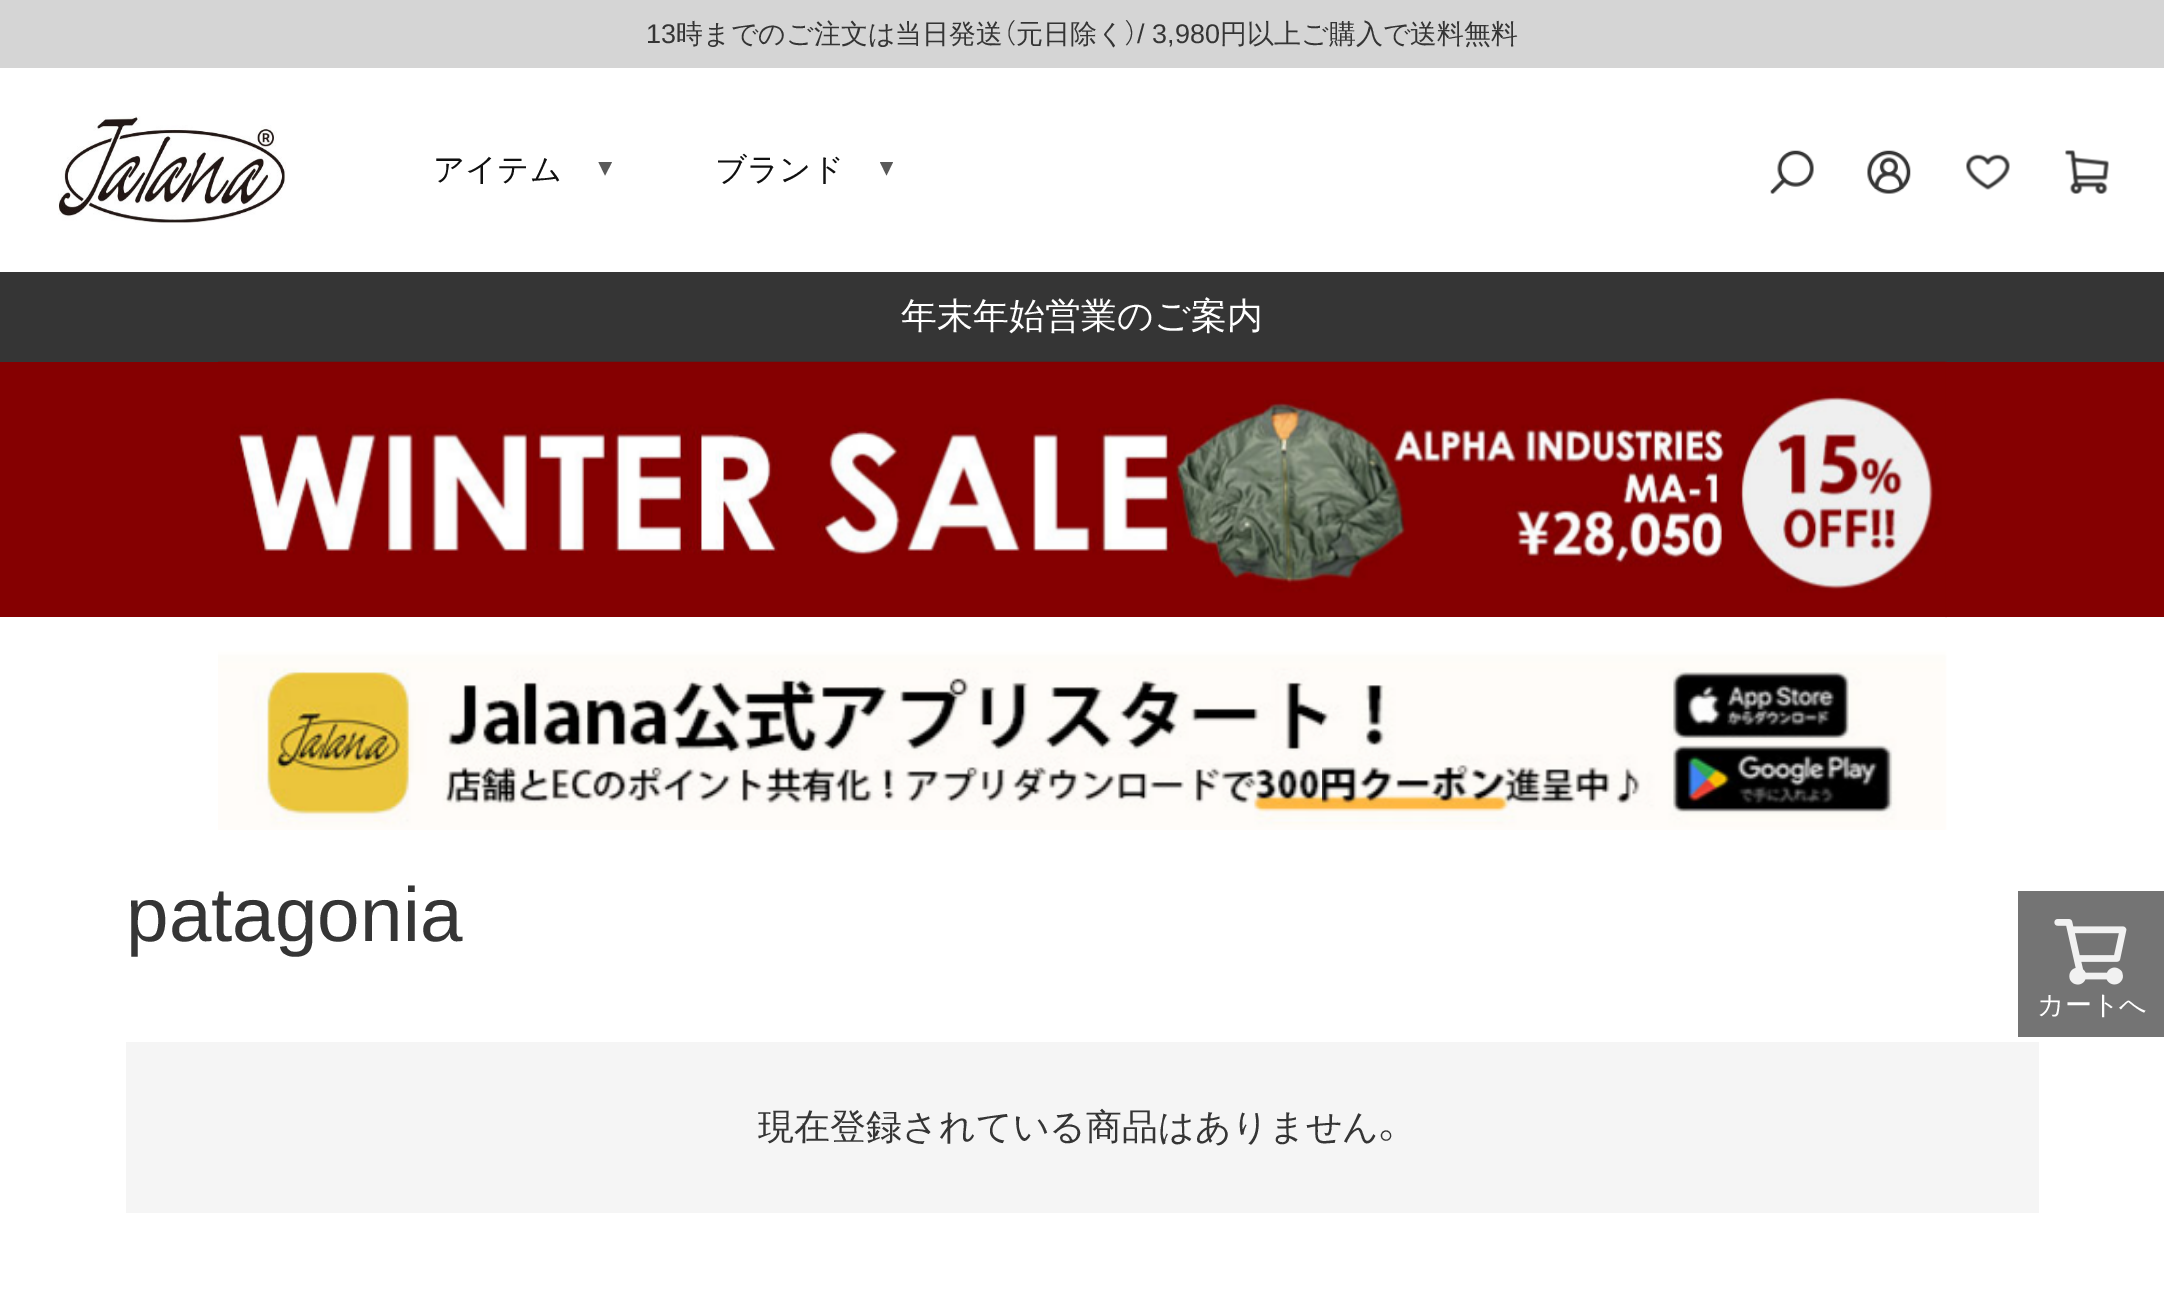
%!PS-Adobe-3.0
%%BoundingBox: 0 0 2164 1296
%%LanguageLevel: 3
%%Pages: 1
%%EndComments
%%BeginProlog
/setink { dup -16 bitshift 255 div exch dup -8 bitshift 255 and 255 div exch 255 and 255 div setrgbcolor } def
/usefont { [ exch dup neg 0 0 3 -1 roll 0 0 ] selectfont } def
/drawimage { 5 dict begin { /h /w /y /x /name } { exch def } forall
  gsave x y translate w h scale
  w h 8 [w 0 0 h 0 0] name (r) file false 3 colorimage grestore end } def
%%EndProlog
%%BeginSetup
<< /PageSize [2164 1296] >> setpagedevice
%%EndSetup
%%Page: 1 1
0 1296 translate 1 -1 scale
4 setmiterlimit
16#FFFFFF setink
0 0 2164 1296 rectfill
16#D5D5D5 setink
0 0 2164 68 rectfill
/LiberationSans-Regular 27 usefont
16#353535 setink
646 43 moveto (13) show
/WenQuanYiZenHei-Medium 27 usefont
676 43 moveto (時までのご注文は当日発送) show
/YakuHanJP-Light 27 usefont
1003 43 moveto (（) show
/WenQuanYiZenHei-Medium 27 usefont
1016 43 moveto (元日除く) show
/YakuHanJP-Light 27 usefont
1125 43 moveto (）) show
/LiberationSans-Regular 27 usefont
1137 43 moveto (/ 3,980) show
/WenQuanYiZenHei-Medium 27 usefont
1220 43 moveto (円以上ご購入で送料無料) show
(img1.raw) 58 116 228 107 drawimage
/WenQuanYiZenHei-Medium 31.5 usefont
16#101010 setink
433 180 moveto (アイテム) show
16#595959 setink
598.5 162 moveto 612 162 lineto 605 175.5 lineto closepath fill
16#101010 setink
715 180 moveto (ブランド) show
16#595959 setink
880 162 moveto 893 162 lineto 886.5 175.5 lineto closepath fill
(img2.raw) 1770 150 44 44 drawimage
(img3.raw) 1867 150 44 44 drawimage
(img4.raw) 1966 154 44 36 drawimage
(img5.raw) 2065 150 44 44 drawimage
16#353535 setink
0 272 2164 90 rectfill
/WenQuanYiZenHei-Medium 36 usefont
16#FFFFFF setink
901 328 moveto (年末年始営業のご案内) show
16#850001 setink
0 362 2164 255 rectfill
(img6.raw) 218 361 1729 257 drawimage
(img7.raw) 218 617 1729 213 drawimage
/LiberationSans-Regular 76.5 usefont
16#353535 setink
126 941 moveto (patagonia) show
16#F5F5F5 setink
126 1042 1913 171 rectfill
/WenQuanYiZenHei-Medium 36 usefont
16#353535 setink
758 1139 moveto (現在登録されている商品はありません) show
/YakuHanJP-Light 36 usefont
1379 1139 moveto (。) show
16#747474 setink
2018 891 146 146 rectfill
(img8.raw) 2054 919 73 66 drawimage
/WenQuanYiZenHei-Medium 27 usefont
16#FFFFFF setink
2037 1014 moveto (カートへ) show
showpage
%%EOF
